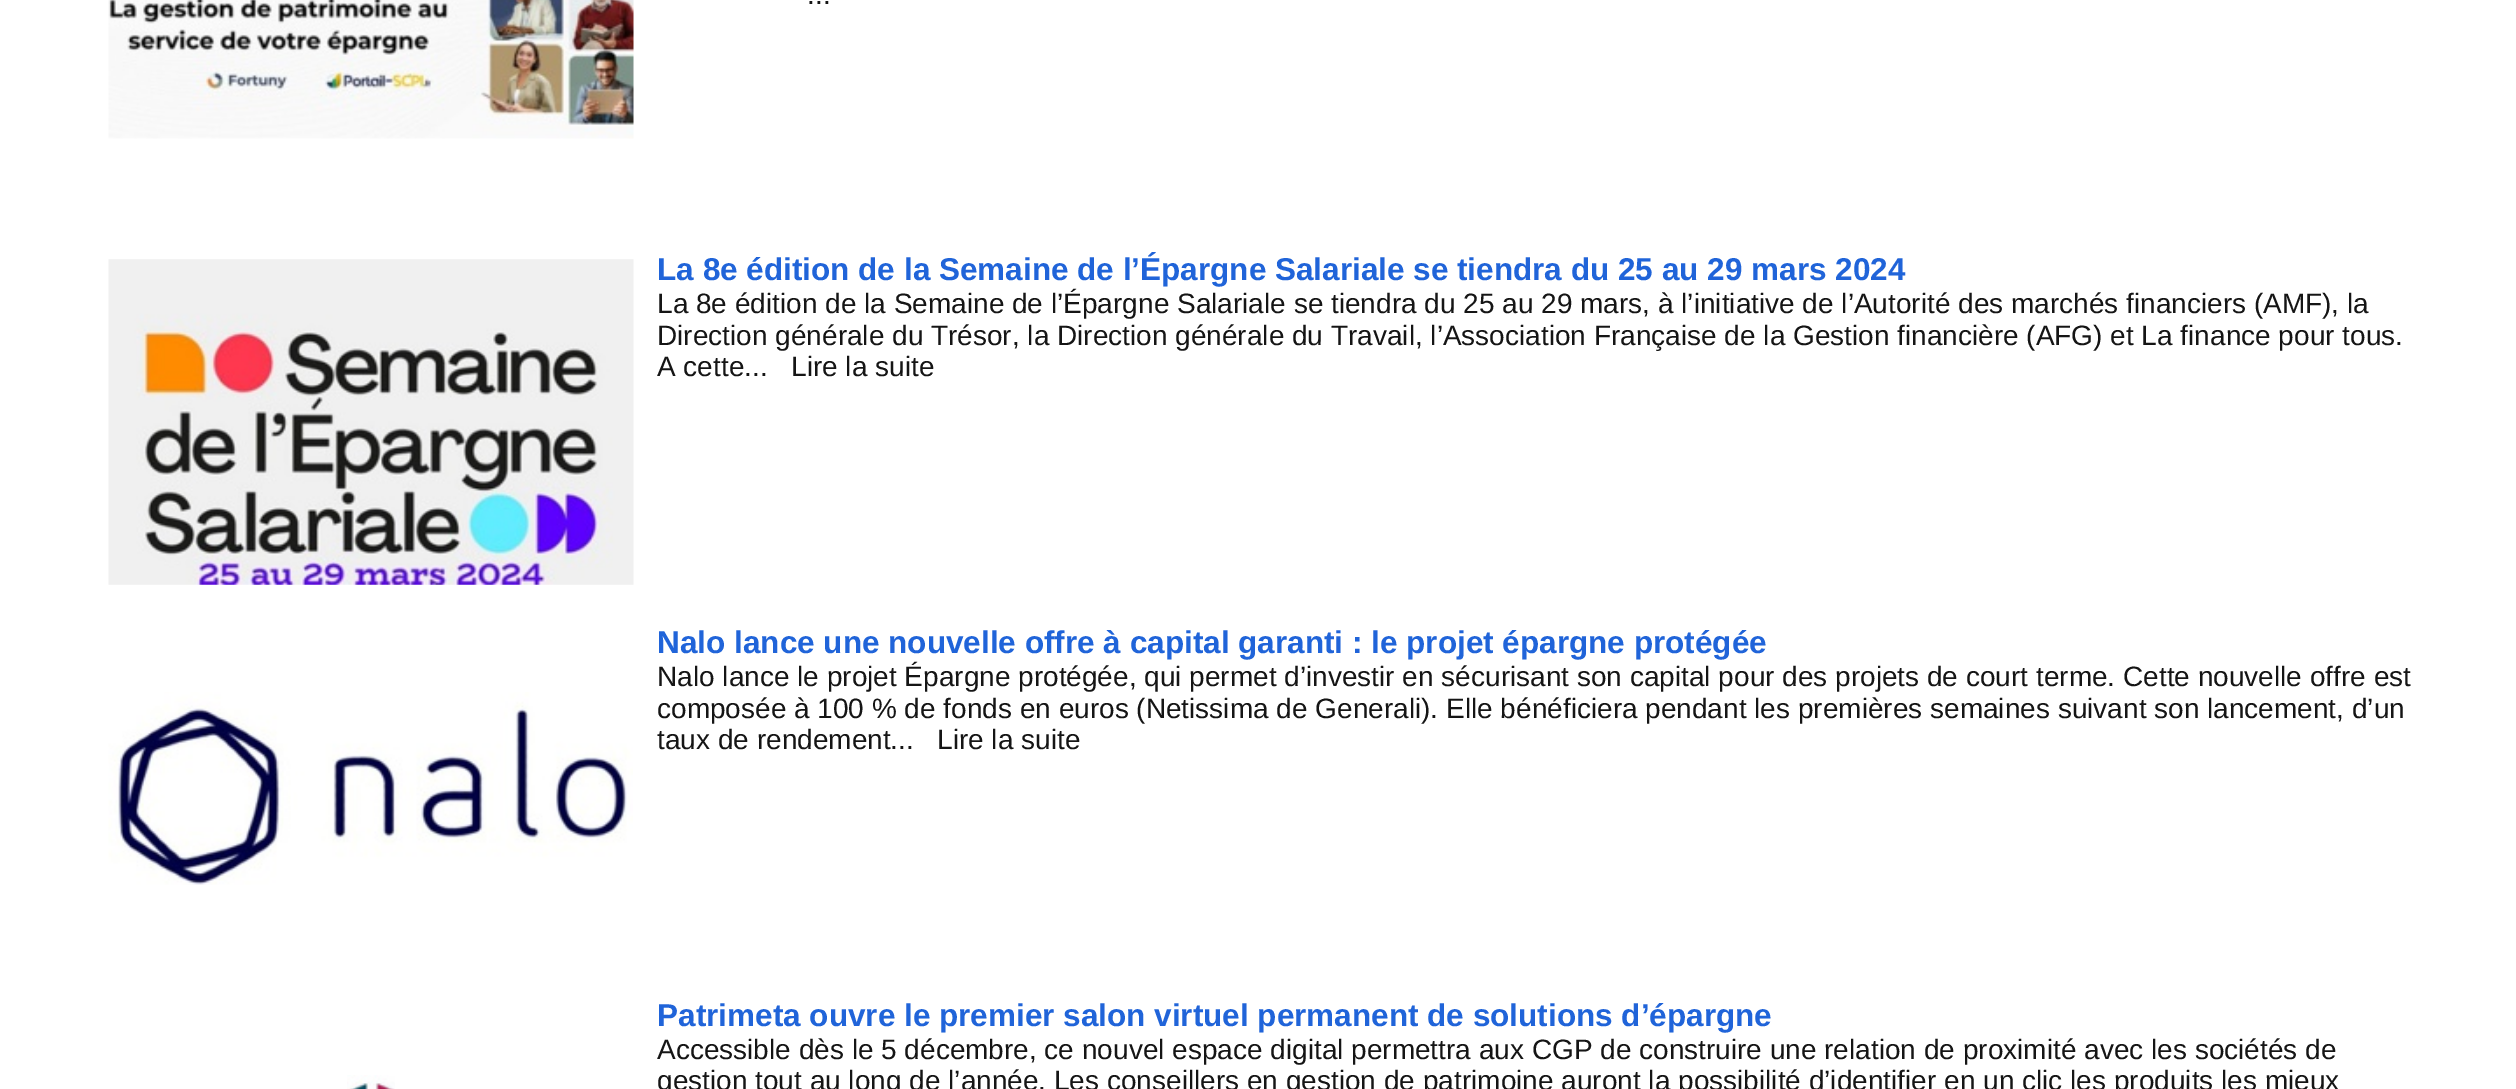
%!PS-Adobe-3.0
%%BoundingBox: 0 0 2516 1089
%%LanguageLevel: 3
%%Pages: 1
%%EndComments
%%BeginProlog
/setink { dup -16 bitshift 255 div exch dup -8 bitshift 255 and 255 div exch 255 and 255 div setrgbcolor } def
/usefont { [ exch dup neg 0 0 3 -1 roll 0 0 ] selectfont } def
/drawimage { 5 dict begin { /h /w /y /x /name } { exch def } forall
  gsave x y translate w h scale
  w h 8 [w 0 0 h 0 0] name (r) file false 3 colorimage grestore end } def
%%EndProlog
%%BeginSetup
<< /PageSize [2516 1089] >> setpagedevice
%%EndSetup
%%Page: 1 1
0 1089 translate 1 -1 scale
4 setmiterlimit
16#FFFFFF setink
0 0 2516 1089 rectfill
(img1.raw) 108 0 526 139 drawimage
/LiberationSans-Regular 28 usefont
16#151515 setink
807 4 moveto (...) show
(img2.raw) 108 259 526 326 drawimage
/LiberationSans-Bold 31.5 usefont
16#2064D9 setink
657 280 moveto (La 8e édition de la Semaine de l’Épargne Salariale se tiendra du 25 au 29 mars 2024) show
/LiberationSans-Regular 28 usefont
16#151515 setink
[
    [(La 8e édition de la Semaine de l’Épargne Salariale se tiendra du 25 au 29 mars, à l’initiative de l’Autorité des marchés financiers \(AMF\), la) 657 313]
    [(Direction générale du Trésor, la Direction générale du Travail, l’Association Française de la Gestion financière \(AFG\) et La finance pour tous.) 657 345]
    [(A cette...) 657 376]
    [(Lire la suite) 791 376]
] { aload pop moveto show } forall
(img3.raw) 108 692 525 193 drawimage
/LiberationSans-Bold 31.5 usefont
16#2064D9 setink
657 653 moveto (Nalo lance une nouvelle offre à capital garanti : le projet épargne protégée) show
/LiberationSans-Regular 28 usefont
16#151515 setink
[
    [(Nalo lance le projet Épargne protégée, qui permet d’investir en sécurisant son capital pour des projets de court terme. Cette nouvelle offre est) 657 686]
    [(composée à 100 % de fonds en euros \(Netissima de Generali\). Elle bénéficiera pendant les premières semaines suivant son lancement, d’un) 657 718]
    [(taux de rendement...) 657 749]
    [(Lire la suite) 937 749]
] { aload pop moveto show } forall
(img4.raw) 347 1075 48 14 drawimage
/LiberationSans-Bold 31.5 usefont
16#2064D9 setink
657 1026 moveto (Patrimeta ouvre le premier salon virtuel permanent de solutions d’épargne) show
/LiberationSans-Regular 28 usefont
16#151515 setink
657 1059 moveto (Accessible dès le 5 décembre, ce nouvel espace digital permettra aux CGP de construire une relation de proximité avec les sociétés de) show
657 1090 moveto (gestion tout au long de l’année. Les conseillers en gestion de patrimoine auront la possibilité d’identifier en un clic les produits les mieux) show
showpage
%%EOF
